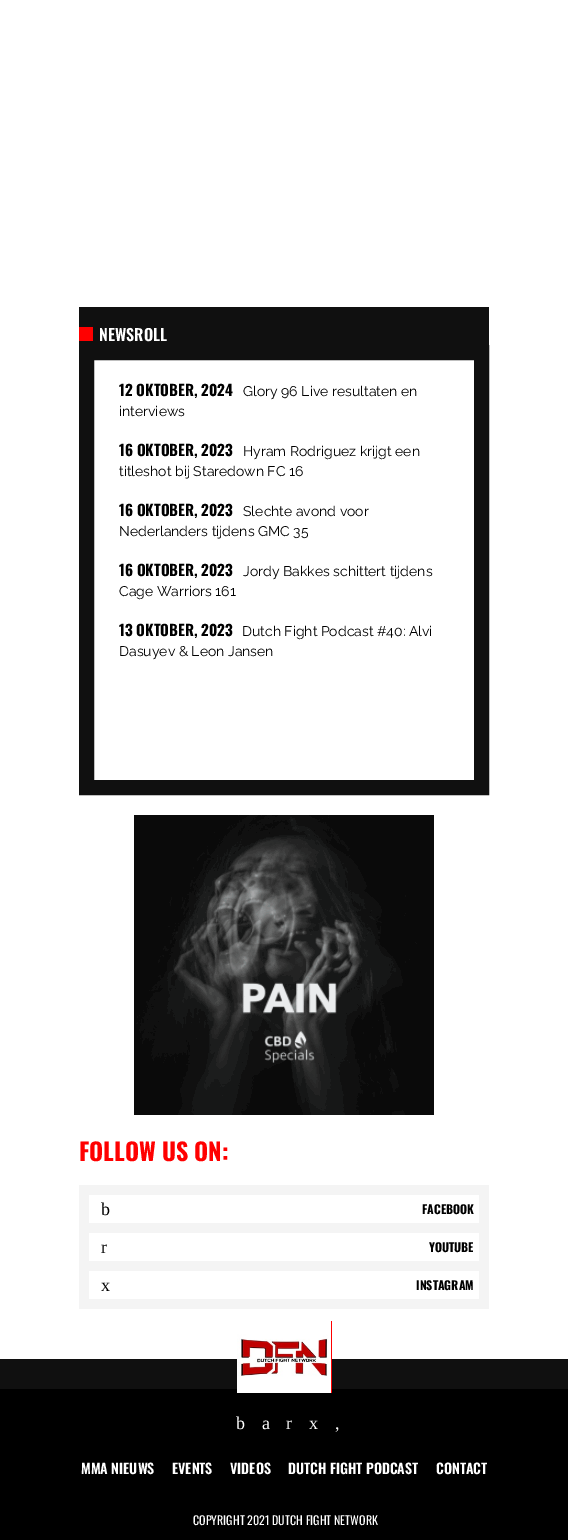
%!PS-Adobe-3.0
%%BoundingBox: 0 0 568 1540
%%LanguageLevel: 3
%%Pages: 1
%%EndComments
%%BeginProlog
/setink { dup -16 bitshift 255 div exch dup -8 bitshift 255 and 255 div exch 255 and 255 div setrgbcolor } def
/usefont { [ exch dup neg 0 0 3 -1 roll 0 0 ] selectfont } def
/drawimage { 5 dict begin { /h /w /y /x /name } { exch def } forall
  gsave x y translate w h scale
  w h 8 [w 0 0 h 0 0] name (r) file false 3 colorimage grestore end } def
%%EndProlog
%%BeginSetup
<< /PageSize [568 1540] >> setpagedevice
%%EndSetup
%%Page: 1 1
0 1540 translate 1 -1 scale
4 setmiterlimit
16#FFFFFF setink
0 0 568 1540 rectfill
16#101010 setink
79 307 410 38 rectfill
16#FF0000 setink
79 327 14 14 rectfill
/Oswald-SemiBold 16 usefont
16#FFFFFF setink
99 341 moveto (NEWSROLL) show
16#101010 setink
15 setlinewidth
86.5 352.5 395 435 rectstroke
/Oswald-Bold 15 usefont
16#000000 setink
119 396 moveto (12 OKTOBER, 2024) show
/Raleway-Thin 14 usefont
243 396 moveto (Glory 96 Live resultaten en) show
119 416 moveto (interviews) show
/Oswald-Bold 15 usefont
119 456 moveto (16 OKTOBER, 2023) show
/Raleway-Thin 14 usefont
243 456 moveto (Hyram Rodriguez krijgt een) show
119 476 moveto (titleshot bij Staredown FC 16) show
/Oswald-Bold 15 usefont
119 516 moveto (16 OKTOBER, 2023) show
/Raleway-Thin 14 usefont
243 516 moveto (Slechte avond voor) show
119 536 moveto (Nederlanders tijdens GMC 35) show
/Oswald-Bold 15 usefont
119 576 moveto (16 OKTOBER, 2023) show
/Raleway-Thin 14 usefont
243 576 moveto (Jordy Bakkes schittert tijdens) show
119 596 moveto (Cage Warriors 161) show
/Oswald-Bold 15 usefont
119 636 moveto (13 OKTOBER, 2023) show
/Raleway-Thin 14 usefont
242 636 moveto (Dutch Fight Podcast #40: Alvi) show
119 656 moveto (Dasuyev & Leon Jansen) show
(img1.raw) 134 815 300 300 drawimage
/Oswald-Bold 24 usefont
16#FF0000 setink
79 1161 moveto (FOLLOW US ON:) show
16#F4F4F4 setink
79 1185 410 124 rectfill
16#FFFFFF setink
89 1195 390 28 rectfill
/LiberationSerif-Regular 18 usefont
16#000000 setink
101 1215 moveto (b) show
/Oswald-Bold 12 usefont
422 1214 moveto (FACEBOOK) show
16#FFFFFF setink
89 1233 390 28 rectfill
/LiberationSerif-Regular 18 usefont
16#000000 setink
101 1253 moveto (r) show
/Oswald-Bold 12 usefont
429 1252 moveto (YOUTUBE) show
16#FFFFFF setink
89 1271 390 28 rectfill
/LiberationSerif-Regular 18 usefont
16#000000 setink
101 1291 moveto (x) show
/Oswald-Bold 12 usefont
416 1290 moveto (INSTAGRAM) show
[
    [0 1389 568 151 16#000000]
    [0 1359 568 30 16#101010]
    [331 1321 1 72 16#FF0000]
] { aload pop setink rectfill } forall
(img2.raw) 237 1321 94 72 drawimage
/LiberationSerif-Regular 18 usefont
16#FFFFFF setink
[
    [(b) 236 1429]
    [(a) 262 1429]
    [(r) 286 1429]
    [(x) 309 1429]
    [(,) 335 1429]
] { aload pop moveto show } forall
/Oswald-SemiBold 14 usefont
[
    [(MMA NIEUWS) 81 1474]
    [(EVENTS) 172 1474]
    [(VIDEOS) 230 1474]
    [(DUTCH FIGHT PODCAST) 288 1474]
    [(CONTACT) 436 1474]
] { aload pop moveto show } forall
/Oswald-Regular 12 usefont
193 1525 moveto (COPYRIGHT 2021 DUTCH FIGHT NETWORK) show
showpage
%%EOF
